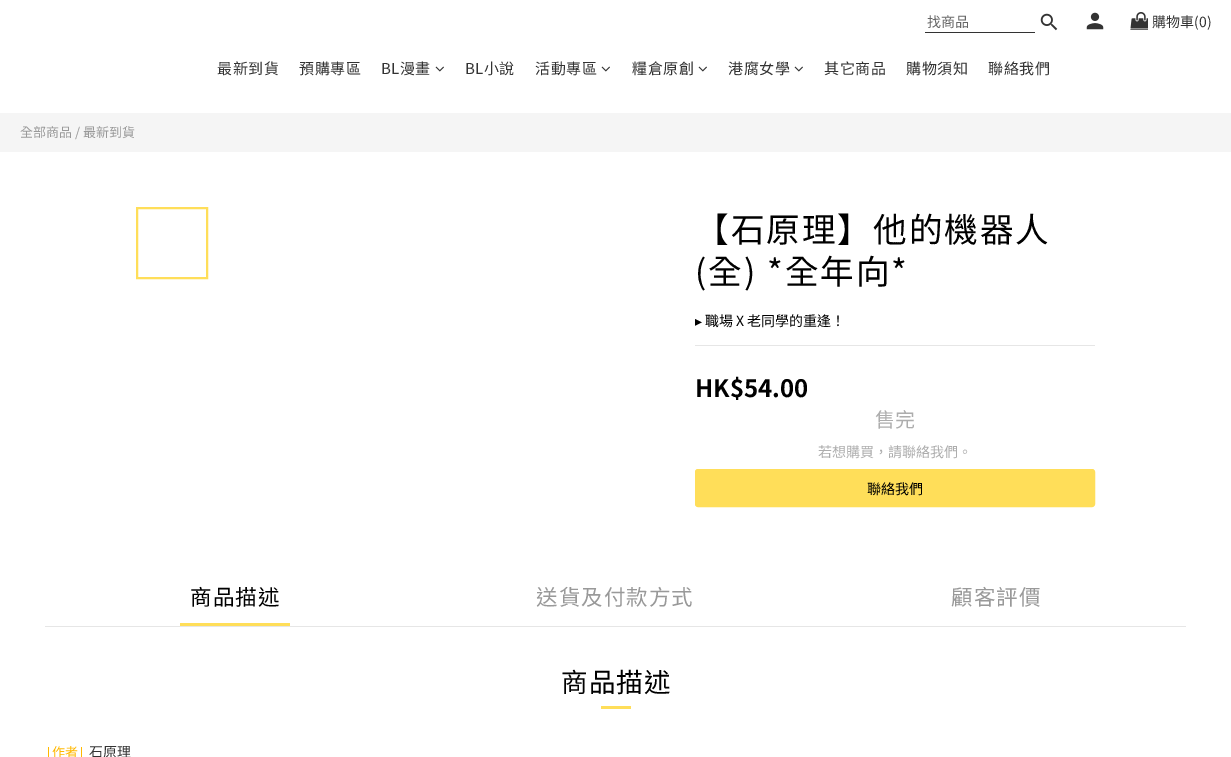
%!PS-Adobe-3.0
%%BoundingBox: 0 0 1231 757
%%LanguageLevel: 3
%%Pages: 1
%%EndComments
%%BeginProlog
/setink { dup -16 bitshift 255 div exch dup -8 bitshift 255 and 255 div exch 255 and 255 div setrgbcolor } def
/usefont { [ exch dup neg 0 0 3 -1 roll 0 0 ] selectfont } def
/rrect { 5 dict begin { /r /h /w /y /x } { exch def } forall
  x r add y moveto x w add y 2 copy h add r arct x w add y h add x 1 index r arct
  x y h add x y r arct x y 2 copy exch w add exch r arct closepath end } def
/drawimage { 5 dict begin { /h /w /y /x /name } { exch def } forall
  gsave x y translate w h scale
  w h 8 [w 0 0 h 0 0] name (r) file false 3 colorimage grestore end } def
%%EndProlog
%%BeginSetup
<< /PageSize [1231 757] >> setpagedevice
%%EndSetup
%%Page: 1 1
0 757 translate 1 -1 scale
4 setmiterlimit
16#FFFFFF setink
0 0 1231 757 rectfill
16#333333 setink
925 32 110 1 rectfill
/NotoSansTC-Regular 14 usefont
16#666666 setink
927 27 moveto (找商品) show
(img1.raw) 1040 13 18 18 drawimage
(img2.raw) 1086 12 18 18 drawimage
(img3.raw) 1130 12 18 18 drawimage
16#333333 setink
1152 27 moveto (購物車\(0\)) show
/NotoSansTC-Regular 15 usefont
217 74 moveto 0.5 0 (最新到貨) ashow
299 74 moveto 0.5 0 (預購專區) ashow
381 74 moveto 0.5 0 (BL漫畫) ashow
(img4.raw) 435 66 9 6 drawimage
465 74 moveto 0.5 0 (BL小說) ashow
535 74 moveto 0.5 0 (活動專區) ashow
(img4.raw) 601 66 9 6 drawimage
632 74 moveto 0.5 0 (糧倉原創) ashow
(img4.raw) 698 66 9 6 drawimage
728 74 moveto 0.5 0 (港腐女學) ashow
(img4.raw) 794 66 9 6 drawimage
824 74 moveto 0.5 0 (其它商品) ashow
906 74 moveto 0.5 0 (購物須知) ashow
988 74 moveto 0.5 0 (聯絡我們) ashow
16#F5F5F5 setink
0 113 1231 39 rectfill
/NotoSansTC-Regular 13 usefont
16#999999 setink
20 137 moveto (全部商品 / 最新到貨) show
16#FFDE59 setink
2 setlinewidth
137 208 70 70 rectstroke
/NotoSansTC-Regular 33.6 usefont
16#000000 setink
695 242 moveto 2 0 (【石原理】他的機器人) ashow
695 284 moveto 2 0 (\(全\) *全年向*) ashow
/DejaVuSans-Regular 14 usefont
695 326 moveto (▸) show
/NotoSansTC-Regular 14 usefont
705 326 moveto (職場 X 老同學的重逢！) show
16#E6E6E6 setink
695 345 400 1 rectfill
/NotoSansTC-Bold 24 usefont
16#000000 setink
695 397 moveto (HK$54.00) show
/NotoSansTC-Regular 20 usefont
16#ADADAD setink
875 427 moveto (售完) show
/NotoSansTC-Regular 14 usefont
818 457 moveto (若想購買，請聯絡我們。) show
16#FFDE59 setink
695.5 469.5 399 37 2.5 rrect gsave fill grestore
1 setlinewidth
stroke
16#000000 setink
867 494 moveto (聯絡我們) show
16#E6E6E6 setink
45 626 1141 1 rectfill
/NotoSansTC-Regular 21.5 usefont
16#000000 setink
190 605 moveto 1 0 (商品描述) ashow
16#FFDE59 setink
180 623 110 3 rectfill
16#999999 setink
536 605 moveto 1 0 (送貨及付款方式) ashow
951 605 moveto 1 0 (顧客評價) ashow
/NotoSansTC-Regular 26.5 usefont
16#000000 setink
561 692 moveto 1 0 (商品描述) ashow
16#FFDE59 setink
601 706 30 3 rectfill
/NotoSans-Regular 13 usefont
16#FFB800 setink
45 757 moveto (|) show
/NotoSansTC-Regular 13 usefont
52 757 moveto (作者) show
/NotoSans-Regular 13 usefont
78 757 moveto (|) show
/NotoSansTC-Regular 14 usefont
16#333333 setink
89 757 moveto (石原理) show
showpage
%%EOF
